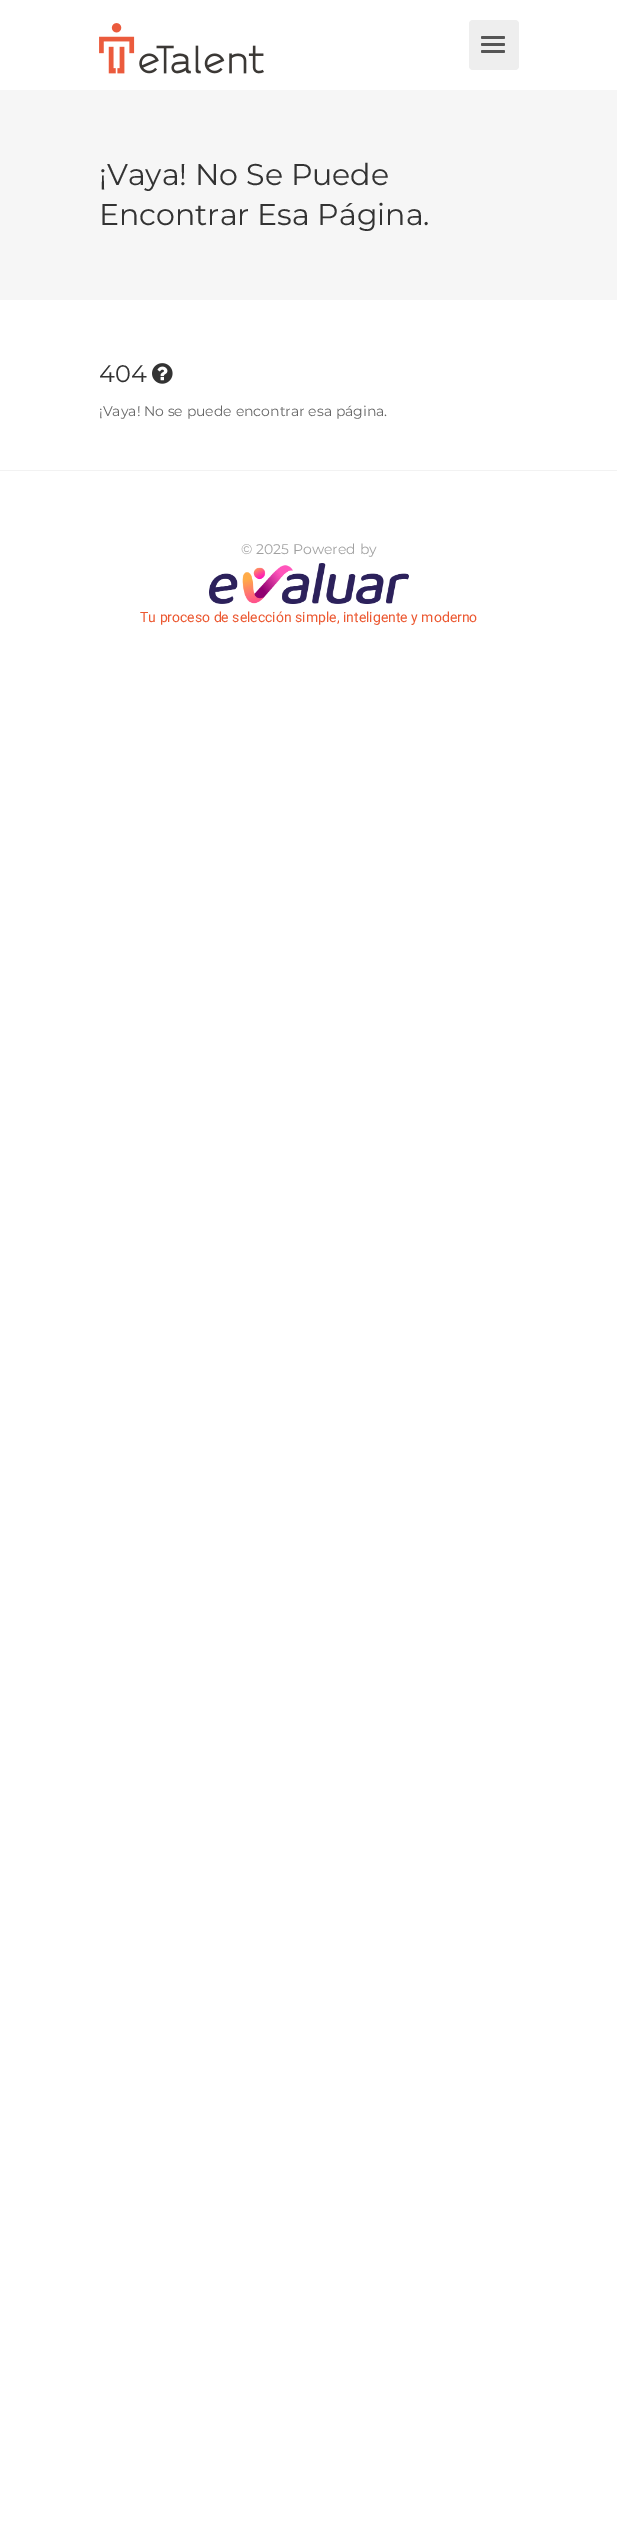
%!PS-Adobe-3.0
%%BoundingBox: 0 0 617 2532
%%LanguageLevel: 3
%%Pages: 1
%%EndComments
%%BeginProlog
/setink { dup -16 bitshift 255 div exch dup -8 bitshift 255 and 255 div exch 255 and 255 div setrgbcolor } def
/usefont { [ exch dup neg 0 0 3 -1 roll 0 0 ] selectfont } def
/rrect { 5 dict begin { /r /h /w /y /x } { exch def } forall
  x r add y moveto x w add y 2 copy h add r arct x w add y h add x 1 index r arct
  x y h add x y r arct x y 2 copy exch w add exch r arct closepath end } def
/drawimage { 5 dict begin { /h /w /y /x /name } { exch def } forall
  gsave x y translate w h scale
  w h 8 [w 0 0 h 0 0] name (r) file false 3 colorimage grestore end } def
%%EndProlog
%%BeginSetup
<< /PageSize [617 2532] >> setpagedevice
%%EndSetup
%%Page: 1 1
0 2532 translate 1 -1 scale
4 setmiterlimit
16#FFFFFF setink
0 0 617 2532 rectfill
(img1.raw) 99 23 165 51 drawimage
16#EEEEEE setink
469 20 50 50 4 rrect fill
16#555555 setink
481 50 24 3 1.5 rrect fill
481 36 24 3 1.5 rrect fill
481 43 24 3 1.5 rrect fill
16#F6F6F6 setink
0 90 617 210 rectfill
/Montserrat-Thin 30 usefont
16#333333 setink
99 185 moveto (¡Vaya! No Se Puede) show
99 225 moveto (Encontrar Esa Página.) show
/Montserrat-Thin 24 usefont
99 382 moveto (404) show
(img2.raw) 152 363 21 21 drawimage
/Montserrat-Thin 14 usefont
16#666666 setink
99 416 moveto (¡Vaya! No se puede encontrar esa página.) show
16#F2F2F2 setink
0 470 617 1 rectfill
16#A0A0A0 setink
241 554 moveto (© 2025 Powered by) show
(img3.raw) 209 563 200 41 drawimage
/Roboto-Regular 14 usefont
16#EC5831 setink
140 622 moveto (Tu proceso de selección simple, inteligente y moderno) show
showpage
%%EOF
